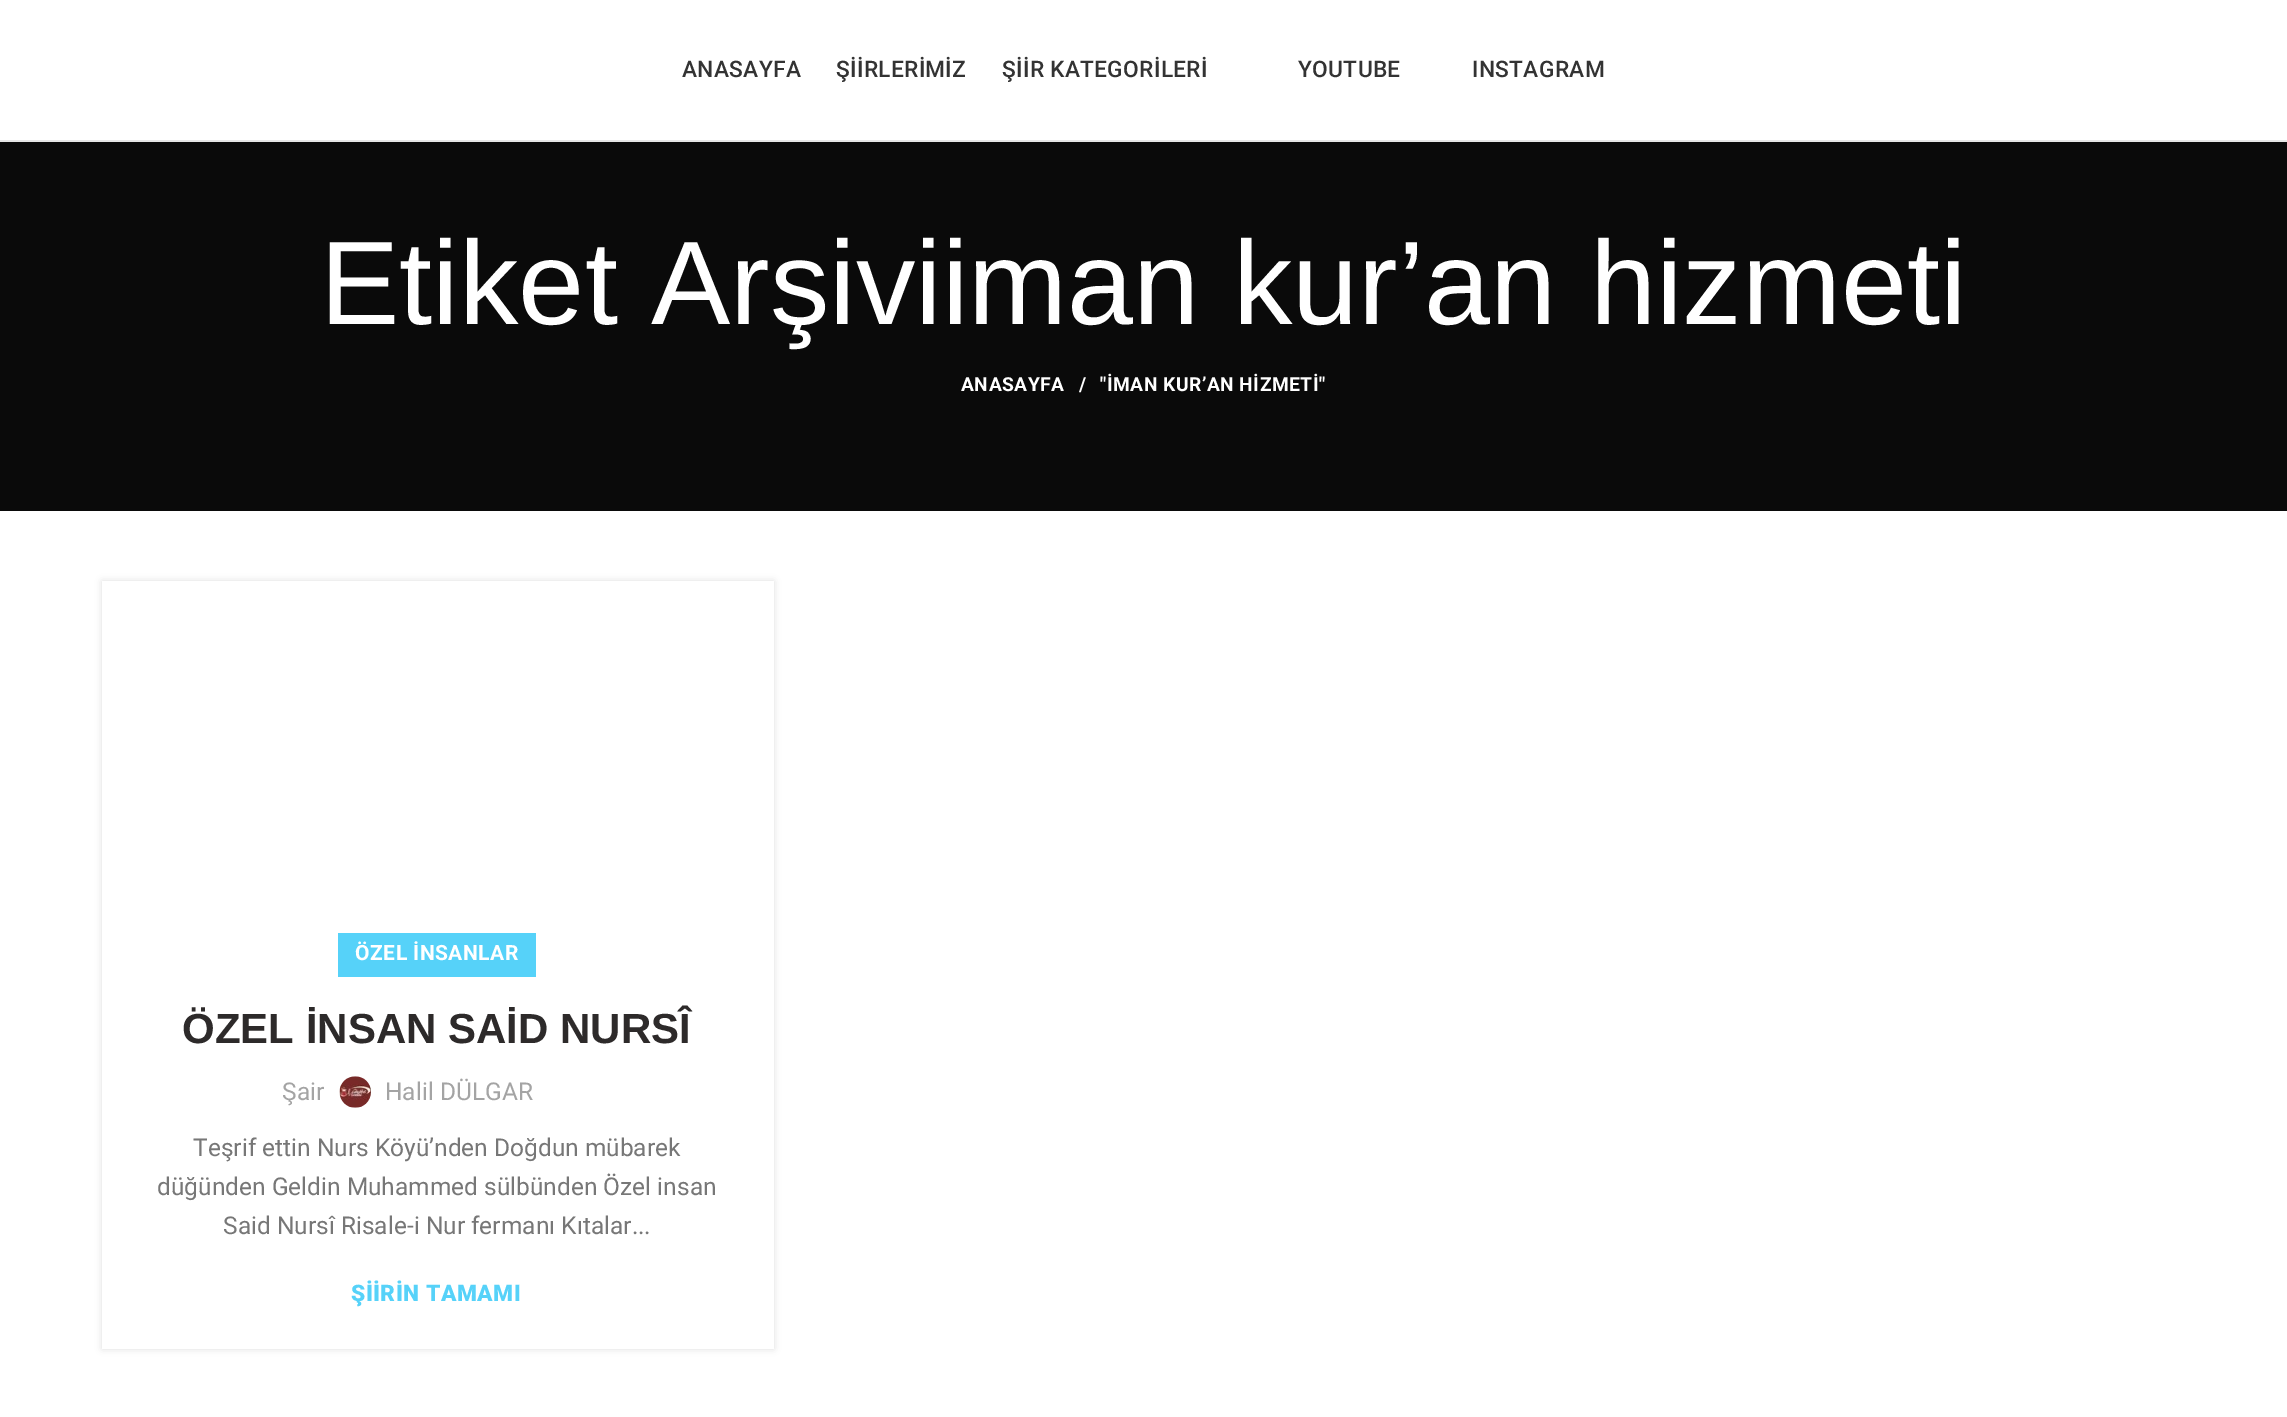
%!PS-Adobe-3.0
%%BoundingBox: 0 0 2287 1417
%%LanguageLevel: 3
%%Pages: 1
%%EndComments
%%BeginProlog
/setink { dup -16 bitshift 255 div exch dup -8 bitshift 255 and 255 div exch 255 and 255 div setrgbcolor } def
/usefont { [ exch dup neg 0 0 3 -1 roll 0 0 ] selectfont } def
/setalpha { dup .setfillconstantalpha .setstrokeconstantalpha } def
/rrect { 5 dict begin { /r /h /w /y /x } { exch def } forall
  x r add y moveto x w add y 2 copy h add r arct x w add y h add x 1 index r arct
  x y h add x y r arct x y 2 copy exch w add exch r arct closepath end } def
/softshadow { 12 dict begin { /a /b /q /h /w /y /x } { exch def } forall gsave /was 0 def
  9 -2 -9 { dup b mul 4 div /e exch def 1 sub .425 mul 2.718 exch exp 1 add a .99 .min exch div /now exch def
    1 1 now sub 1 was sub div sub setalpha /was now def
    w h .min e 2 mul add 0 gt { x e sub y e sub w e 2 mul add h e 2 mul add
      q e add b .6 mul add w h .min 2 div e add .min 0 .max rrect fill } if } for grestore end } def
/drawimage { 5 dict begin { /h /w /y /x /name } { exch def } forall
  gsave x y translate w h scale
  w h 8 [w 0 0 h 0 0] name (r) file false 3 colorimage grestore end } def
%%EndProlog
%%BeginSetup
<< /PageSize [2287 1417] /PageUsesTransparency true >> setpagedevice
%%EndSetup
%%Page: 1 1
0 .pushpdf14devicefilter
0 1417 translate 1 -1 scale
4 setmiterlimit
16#FFFFFF setink
0 0 2287 1417 rectfill
16#E6E6E6 setink
0 140 2287 2 rectfill
/Roboto-Medium 22.75 usefont
16#333333 setink
682 77 moveto 0.3 0 (ANASAYFA) ashow
836 77 moveto 0.3 0 (ŞİİRLERİMİZ) ashow
1002 77 moveto 0.3 0 (ŞİİR KATEGORİLERİ) ashow
1298 77 moveto 0.3 0 (YOUTUBE) ashow
1472 77 moveto 0.3 0 (INSTAGRAM) ashow
16#0A0A0A setink
0 142 2287 369 rectfill
/LiberationSans-Regular 119 usefont
16#FFFFFF setink
320 324 moveto (Etiket Arşiviiman kur’an hizmeti) show
/Roboto-Bold 19.25 usefont
961 391 moveto 0.5 0 (ANASAYFA) ashow
1079 391 moveto 0.5 0 (/) ashow
1100 391 moveto 0.5 0 ("İMAN KUR’AN HİZMETİ") ashow
gsave
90 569 moveto 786 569 lineto 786 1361 lineto 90 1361 lineto closepath 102 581 moveto 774 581 lineto 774 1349 lineto 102 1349 lineto closepath eoclip newpath
16#000000 setink
102 581 672 768 0 3.5 0.12 softshadow
grestore
773 956 1 393 rectfill
16#56D2F9 setink
338 933 198 44 rectfill
/Roboto-Bold 21 usefont
16#FFFFFF setink
355 960 moveto 0.5 0 (ÖZEL İNSANLAR) ashow
/LiberationSans-Bold 42 usefont
16#2D2A2A setink
182 1043 moveto (ÖZEL İNSAN SAİD NURSÎ) show
/Roboto-Regular 24.5 usefont
16#A4A4A4 setink
282 1100 moveto (Şair) show
(img1.raw) 339 1076 32 32 drawimage
385 1100 moveto (Halil DÜLGAR) show
16#777777 setink
[
    [(Teşrif ettin Nurs Köyü’nden Doğdun mübarek) 193 1156]
    [(düğünden Geldin Muhammed sülbünden Özel insan) 157 1195]
    [(Said Nursî Risale-i Nur fermanı Kıtalar...) 223 1234]
] { aload pop moveto show } forall
/Roboto-Black 22.75 usefont
16#56D2F9 setink
351 1301 moveto 0.5 0 (ŞİİRİN TAMAMI) ashow
.poppdf14devicefilter showpage
%%EOF
